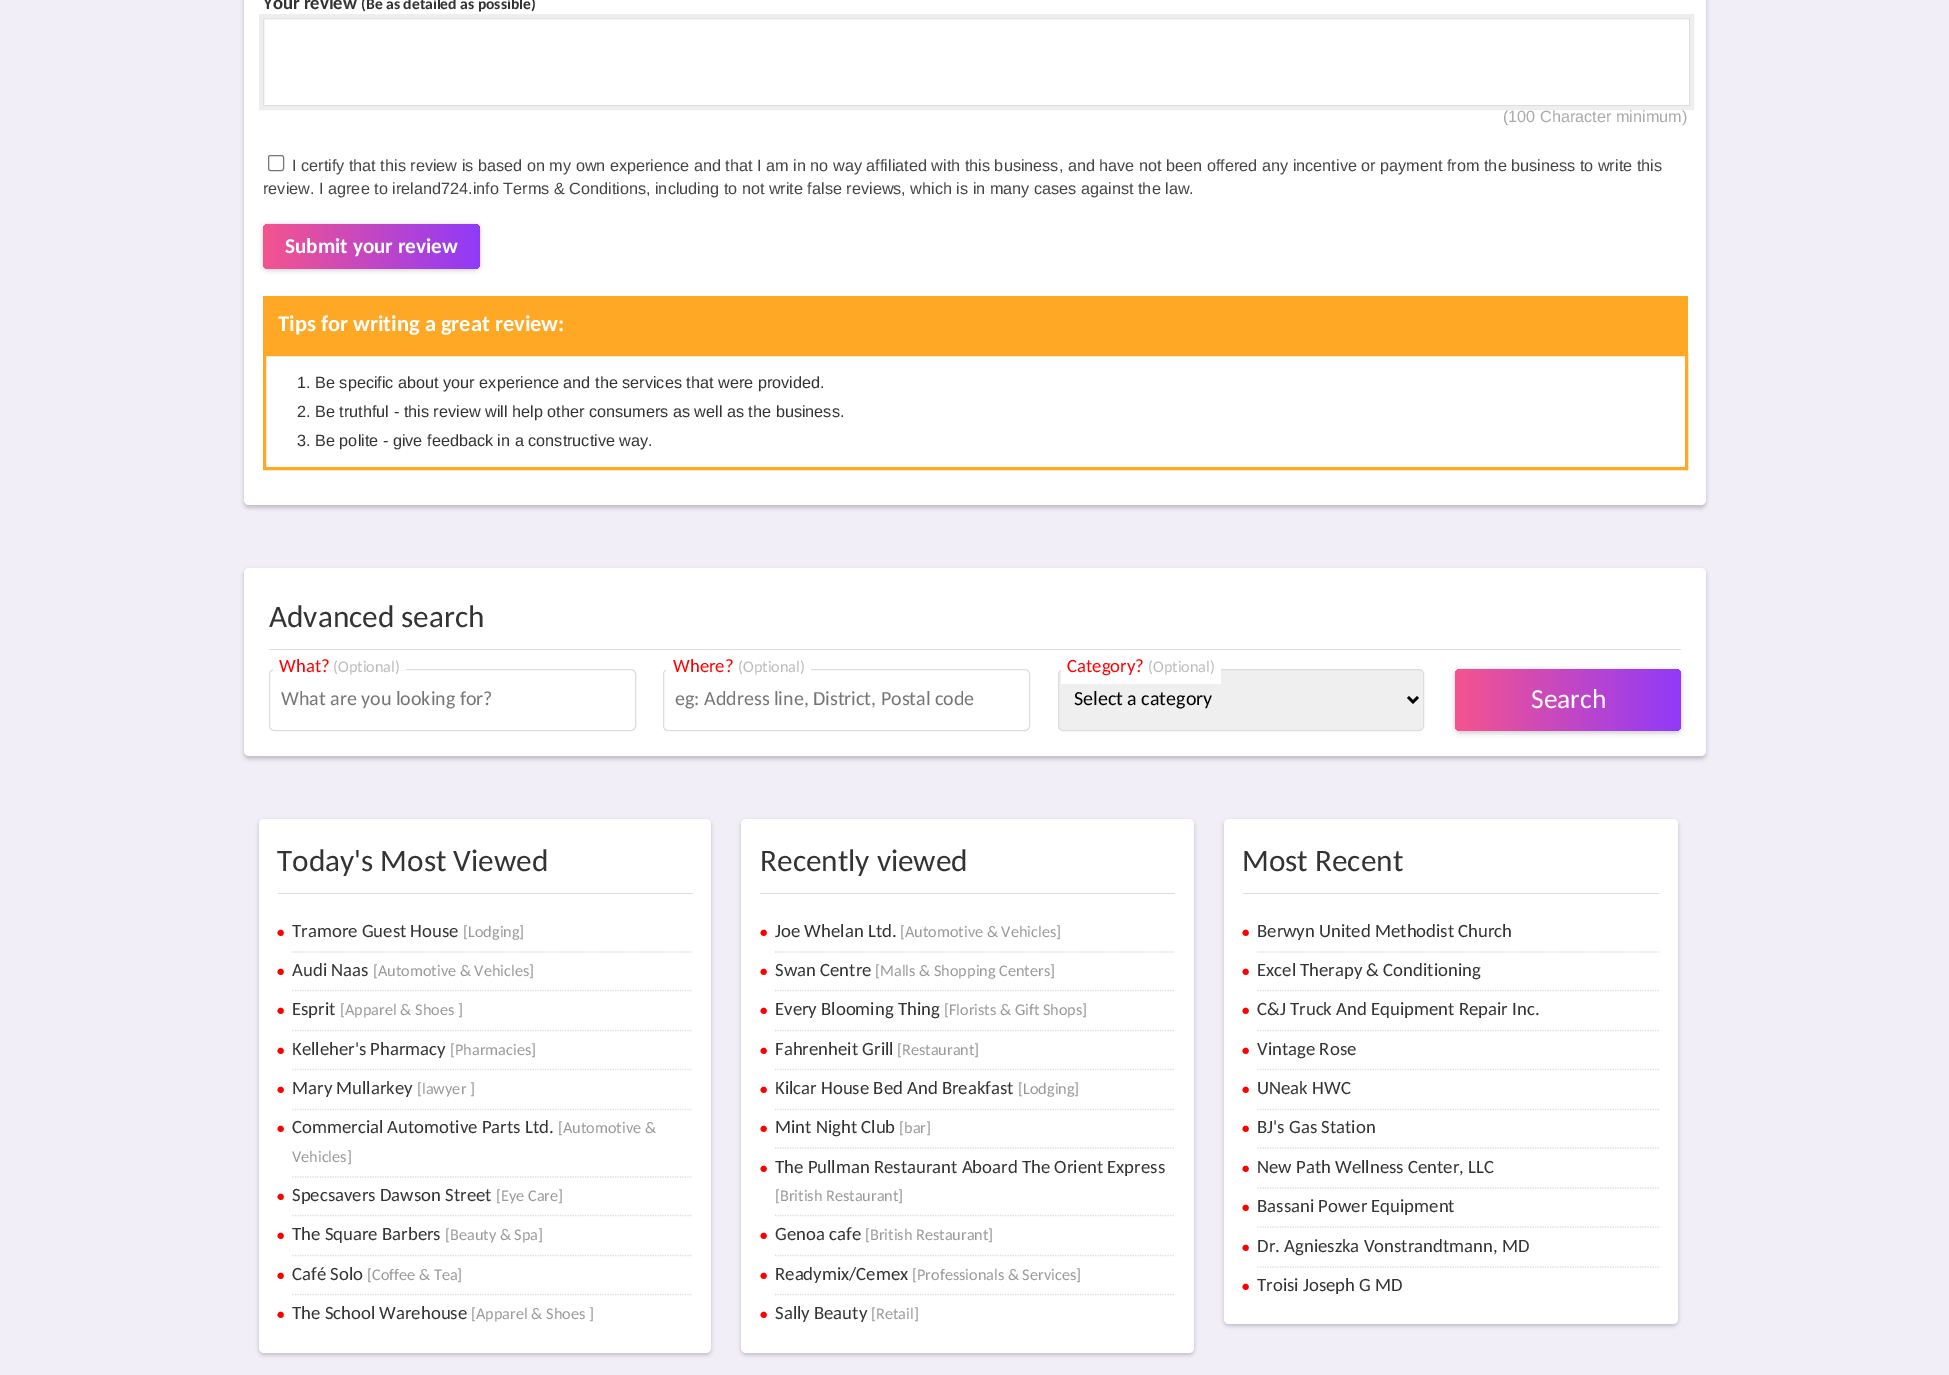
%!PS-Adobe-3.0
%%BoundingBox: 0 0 1949 1375
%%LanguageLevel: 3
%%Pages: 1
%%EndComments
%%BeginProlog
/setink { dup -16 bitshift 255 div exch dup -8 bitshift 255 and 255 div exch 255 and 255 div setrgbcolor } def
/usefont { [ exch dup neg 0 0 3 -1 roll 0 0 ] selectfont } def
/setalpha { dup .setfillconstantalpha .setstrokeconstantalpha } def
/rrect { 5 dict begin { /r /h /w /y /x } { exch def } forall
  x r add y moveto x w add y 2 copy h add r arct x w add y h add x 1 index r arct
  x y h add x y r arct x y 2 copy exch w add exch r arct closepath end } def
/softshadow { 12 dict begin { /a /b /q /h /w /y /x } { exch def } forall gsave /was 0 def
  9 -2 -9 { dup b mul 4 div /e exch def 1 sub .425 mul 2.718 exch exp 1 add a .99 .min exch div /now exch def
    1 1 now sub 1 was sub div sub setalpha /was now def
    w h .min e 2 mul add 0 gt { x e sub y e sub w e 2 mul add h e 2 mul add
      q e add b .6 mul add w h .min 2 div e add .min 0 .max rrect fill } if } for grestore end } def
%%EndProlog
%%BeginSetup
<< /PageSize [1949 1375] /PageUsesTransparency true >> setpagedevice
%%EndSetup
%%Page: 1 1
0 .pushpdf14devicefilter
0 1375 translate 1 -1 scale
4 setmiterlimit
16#F1EEF7 setink
0 0 1949 1375 rectfill
16#000000 setink
244 -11 1462 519 5 2 0.2 softshadow
16#FFFFFF setink
244 -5 1462 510 5 rrect fill
/Carlito-Bold 18.75 usefont
16#333333 setink
263 9 moveto (Your review) show
/Carlito-Bold 15.6 usefont
361 9 moveto (\(Be as detailed as possible\)) show
16#DDDDDD setink
263.5 18.5 1426 87 rectstroke
16#EEEEEE setink
4 setlinewidth
261 16 1431 92 rectstroke
/LiberationSans-Regular 16.25 usefont
16#AAAAAA setink
1503 122 moveto (\(100 Character minimum\)) show
16#767676 setink
1 setlinewidth
268.5 155.5 15 15 2 rrect stroke
16#444444 setink
292 171 moveto (I certify that this review is based on my own experience and that I am in no way affiliated with this business, and have not been offered any incentive or payment from the business to write this) show
263 194 moveto (review. I agree to ireland724.info Terms & Conditions, including to not write false reviews, which is in many cases against the law.) show
16#000000 setink
263 225 217 45 5 2.5 0.2 softshadow
gsave 263 224 217 45 5 rrect clip newpath
<< /ShadingType 2 /ColorSpace /DeviceRGB /Coords [263 246 480 246] /Extend [true true] /Function << /FunctionType 2 /Domain [0 1] /C0 [0.961 0.329 0.557] /C1 [0.565 0.227 0.976] /N 1 >> >> shfill grestore
/Carlito-Bold 21.25 usefont
16#FFFFFF setink
285 253 moveto (Submit your review) show
16#FFA826 setink
263 296 1425 57 rectfill
/Carlito-Bold 22.5 usefont
16#FFFFFF setink
278 331 moveto (Tips for writing a great review:) show
16#FFA826 setink
3 setlinewidth
264.5 354.5 1422 114 rectstroke
/LiberationSans-Regular 16.25 usefont
16#333333 setink
[
    [(1. Be specific about your experience and the services that were provided.) 297 388]
    [(2. Be truthful - this review will help other consumers as well as the business.) 297 417]
    [(3. Be polite - give feedback in a constructive way.) 297 446]
] { aload pop moveto show } forall
16#000000 setink
244 570 1462 189 5 2 0.2 softshadow
16#FFFFFF setink
244 568 1462 188 5 rrect fill
16#DDDDDD setink
269 649 1412 1 rectfill
/Carlito-Regular 31.25 usefont
16#333333 setink
269 627 moveto (Advanced search) show
16#DDDDDD setink
1 setlinewidth
269.5 669.5 366 61 4.5 rrect stroke
16#FFFFFF setink
273 669 133 1 rectfill
/Carlito-Regular 18.75 usefont
16#FF0000 setink
279 672 moveto (What?) show
/Carlito-Regular 16.25 usefont
16#BBBBBB setink
333 672 moveto (\(Optional\)) show
/Carlito-Regular 20 usefont
16#757575 setink
281 705 moveto (What are you looking for?) show
16#DDDDDD setink
663.5 669.5 366 61 4.5 rrect stroke
16#FFFFFF setink
666 669 145 2 rectfill
/Carlito-Regular 18.75 usefont
16#FF0000 setink
673 672 moveto (Where?) show
/Carlito-Regular 16.25 usefont
16#BBBBBB setink
738 672 moveto (\(Optional\)) show
/Carlito-Regular 20 usefont
16#757575 setink
675 705 moveto (eg: Address line, District, Postal code) show
16#EFEFEF setink
1058.5 669.5 365 61 4.5 rrect gsave fill grestore
16#DDDDDD setink
stroke
16#FFFFFF setink
1061 669 160 15 rectfill
/Carlito-Regular 18.75 usefont
16#FF0000 setink
1067 672 moveto (Category?) show
/Carlito-Regular 16.25 usefont
16#BBBBBB setink
1148 672 moveto (\(Optional\)) show
16#000000 setink
2.5 setlinewidth
1408 697 moveto 1413 702 lineto 1418 697 lineto stroke
/Carlito-Regular 20 usefont
1074 705 moveto (Select a category) show
1455 670 226 63 5 2.5 0.2 softshadow
gsave 1455 669 226 62 5 rrect clip newpath
<< /ShadingType 2 /ColorSpace /DeviceRGB /Coords [1455 700 1681 700] /Extend [true true] /Function << /FunctionType 2 /Domain [0 1] /C0 [0.961 0.329 0.557] /C1 [0.565 0.227 0.976] /N 1 >> >> shfill grestore
/Carlito-Regular 27.5 usefont
16#FFFFFF setink
1531 708 moveto (Search) show
16#000000 setink
259 821 452 534 5 2 0.2 softshadow
16#FFFFFF setink
259 819 452 534 5 rrect fill
16#DDDDDD setink
278 893 415 1 rectfill
/Carlito-Regular 31.25 usefont
16#333333 setink
277 871 moveto (Today's Most Viewed) show
16#DDDDDD setink
1.2 setlinewidth
[1.25 1.25] 0 setdash
292.5 952 moveto 692.5 952 lineto stroke
/Carlito-Bold 15 usefont
16#FF0000 setink
277 937 moveto (•) show
/Carlito-Regular 18.75 usefont
16#333333 setink
292 937 moveto (Tramore Guest House) show
/Carlito-Regular 16.25 usefont
16#999999 setink
463 937 moveto ([Lodging]) show
16#DDDDDD setink
292.5 990.5 moveto 692.5 990.5 lineto stroke
/Carlito-Bold 15 usefont
16#FF0000 setink
277 976 moveto (•) show
/Carlito-Regular 18.75 usefont
16#333333 setink
292 976 moveto (Audi Naas) show
/Carlito-Regular 16.25 usefont
16#999999 setink
373 976 moveto ([Automotive & Vehicles]) show
16#DDDDDD setink
292.5 1030.5 moveto 692.5 1030.5 lineto stroke
/Carlito-Bold 15 usefont
16#FF0000 setink
277 1015 moveto (•) show
/Carlito-Regular 18.75 usefont
16#333333 setink
292 1015 moveto (Esprit) show
/Carlito-Regular 16.25 usefont
16#999999 setink
340 1015 moveto ([Apparel & Shoes ]) show
16#DDDDDD setink
292.5 1069.5 moveto 692.5 1069.5 lineto stroke
/Carlito-Bold 15 usefont
16#FF0000 setink
277 1055 moveto (•) show
/Carlito-Regular 18.75 usefont
16#333333 setink
292 1055 moveto (Kelleher's Pharmacy) show
/Carlito-Regular 16.25 usefont
16#999999 setink
450 1055 moveto ([Pharmacies]) show
16#DDDDDD setink
292.5 1109.5 moveto 692.5 1109.5 lineto stroke
/Carlito-Bold 15 usefont
16#FF0000 setink
277 1094 moveto (•) show
/Carlito-Regular 18.75 usefont
16#333333 setink
292 1094 moveto (Mary Mullarkey) show
/Carlito-Regular 16.25 usefont
16#999999 setink
417 1094 moveto ([lawyer ]) show
16#DDDDDD setink
292.5 1177 moveto 692.5 1177 lineto stroke
/Carlito-Bold 15 usefont
16#FF0000 setink
277 1133 moveto (•) show
/Carlito-Regular 18.75 usefont
16#333333 setink
292 1133 moveto (Commercial Automotive Parts Ltd.) show
/Carlito-Regular 16.25 usefont
16#999999 setink
558 1133 moveto ([Automotive &) show
292 1162 moveto (Vehicles]) show
16#DDDDDD setink
292.5 1215.5 moveto 692.5 1215.5 lineto stroke
/Carlito-Bold 15 usefont
16#FF0000 setink
277 1201 moveto (•) show
/Carlito-Regular 18.75 usefont
16#333333 setink
292 1201 moveto (Specsavers Dawson Street) show
/Carlito-Regular 16.25 usefont
16#999999 setink
496 1201 moveto ([Eye Care]) show
16#DDDDDD setink
292.5 1255.5 moveto 692.5 1255.5 lineto stroke
/Carlito-Bold 15 usefont
16#FF0000 setink
277 1240 moveto (•) show
/Carlito-Regular 18.75 usefont
16#333333 setink
292 1240 moveto (The Square Barbers) show
/Carlito-Regular 16.25 usefont
16#999999 setink
445 1240 moveto ([Beauty & Spa]) show
16#DDDDDD setink
292.5 1294.5 moveto 692.5 1294.5 lineto stroke
/Carlito-Bold 15 usefont
16#FF0000 setink
277 1280 moveto (•) show
/Carlito-Regular 18.75 usefont
16#333333 setink
292 1280 moveto (Café Solo) show
/Carlito-Regular 16.25 usefont
16#999999 setink
367 1280 moveto ([Coffee & Tea]) show
/Carlito-Bold 15 usefont
16#FF0000 setink
277 1319 moveto (•) show
/Carlito-Regular 18.75 usefont
16#333333 setink
292 1319 moveto (The School Warehouse) show
/Carlito-Regular 16.25 usefont
16#999999 setink
471 1319 moveto ([Apparel & Shoes ]) show
16#000000 setink
741 821 453 534 5 2 0.2 softshadow
16#FFFFFF setink
741 819 453 534 5 rrect fill
16#DDDDDD setink
760 893 415 1 rectfill
/Carlito-Regular 31.25 usefont
16#333333 setink
760 871 moveto (Recently viewed) show
16#DDDDDD setink
775 952 moveto 1175 952 lineto stroke
/Carlito-Bold 15 usefont
16#FF0000 setink
760 937 moveto (•) show
/Carlito-Regular 18.75 usefont
16#333333 setink
775 937 moveto (Joe Whelan Ltd.) show
/Carlito-Regular 16.25 usefont
16#999999 setink
900 937 moveto ([Automotive & Vehicles]) show
16#DDDDDD setink
775 990.5 moveto 1175 990.5 lineto stroke
/Carlito-Bold 15 usefont
16#FF0000 setink
760 976 moveto (•) show
/Carlito-Regular 18.75 usefont
16#333333 setink
775 976 moveto (Swan Centre) show
/Carlito-Regular 16.25 usefont
16#999999 setink
875 976 moveto ([Malls & Shopping Centers]) show
16#DDDDDD setink
775 1030.5 moveto 1175 1030.5 lineto stroke
/Carlito-Bold 15 usefont
16#FF0000 setink
760 1015 moveto (•) show
/Carlito-Regular 18.75 usefont
16#333333 setink
775 1015 moveto (Every Blooming Thing) show
/Carlito-Regular 16.25 usefont
16#999999 setink
944 1015 moveto ([Florists & Gift Shops]) show
16#DDDDDD setink
775 1069.5 moveto 1175 1069.5 lineto stroke
/Carlito-Bold 15 usefont
16#FF0000 setink
760 1055 moveto (•) show
/Carlito-Regular 18.75 usefont
16#333333 setink
775 1055 moveto (Fahrenheit Grill) show
/Carlito-Regular 16.25 usefont
16#999999 setink
897 1055 moveto ([Restaurant]) show
16#DDDDDD setink
775 1109.5 moveto 1175 1109.5 lineto stroke
/Carlito-Bold 15 usefont
16#FF0000 setink
760 1094 moveto (•) show
/Carlito-Regular 18.75 usefont
16#333333 setink
775 1094 moveto (Kilcar House Bed And Breakfast) show
/Carlito-Regular 16.25 usefont
16#999999 setink
1018 1094 moveto ([Lodging]) show
16#DDDDDD setink
775 1148 moveto 1175 1148 lineto stroke
/Carlito-Bold 15 usefont
16#FF0000 setink
760 1133 moveto (•) show
/Carlito-Regular 18.75 usefont
16#333333 setink
775 1133 moveto (Mint Night Club) show
/Carlito-Regular 16.25 usefont
16#999999 setink
899 1133 moveto ([bar]) show
16#DDDDDD setink
775 1215.5 moveto 1175 1215.5 lineto stroke
/Carlito-Bold 15 usefont
16#FF0000 setink
760 1173 moveto (•) show
/Carlito-Regular 18.75 usefont
16#333333 setink
775 1173 moveto (The Pullman Restaurant Aboard The Orient Express) show
/Carlito-Regular 16.25 usefont
16#999999 setink
775 1201 moveto ([British Restaurant]) show
16#DDDDDD setink
775 1255.5 moveto 1175 1255.5 lineto stroke
/Carlito-Bold 15 usefont
16#FF0000 setink
760 1240 moveto (•) show
/Carlito-Regular 18.75 usefont
16#333333 setink
775 1240 moveto (Genoa cafe) show
/Carlito-Regular 16.25 usefont
16#999999 setink
865 1240 moveto ([British Restaurant]) show
16#DDDDDD setink
775 1294.5 moveto 1175 1294.5 lineto stroke
/Carlito-Bold 15 usefont
16#FF0000 setink
760 1280 moveto (•) show
/Carlito-Regular 18.75 usefont
16#333333 setink
775 1280 moveto (Readymix/Cemex) show
/Carlito-Regular 16.25 usefont
16#999999 setink
912 1280 moveto ([Professionals & Services]) show
/Carlito-Bold 15 usefont
16#FF0000 setink
760 1319 moveto (•) show
/Carlito-Regular 18.75 usefont
16#333333 setink
775 1319 moveto (Sally Beauty) show
/Carlito-Regular 16.25 usefont
16#999999 setink
871 1319 moveto ([Retail]) show
16#000000 setink
1224 821 454 505 5 2 0.2 softshadow
16#FFFFFF setink
1224 819 454 505 5 rrect fill
16#DDDDDD setink
1243 893 416 1 rectfill
/Carlito-Regular 31.25 usefont
16#333333 setink
1242 871 moveto (Most Recent) show
16#DDDDDD setink
1257.5 952 moveto 1659 952 lineto stroke
/Carlito-Bold 15 usefont
16#FF0000 setink
1242 937 moveto (•) show
/Carlito-Regular 18.75 usefont
16#333333 setink
1257 937 moveto (Berwyn United Methodist Church) show
16#DDDDDD setink
1257.5 990.5 moveto 1659 990.5 lineto stroke
/Carlito-Bold 15 usefont
16#FF0000 setink
1242 976 moveto (•) show
/Carlito-Regular 18.75 usefont
16#333333 setink
1257 976 moveto (Excel Therapy & Conditioning) show
16#DDDDDD setink
1257.5 1030.5 moveto 1659 1030.5 lineto stroke
/Carlito-Bold 15 usefont
16#FF0000 setink
1242 1015 moveto (•) show
/Carlito-Regular 18.75 usefont
16#333333 setink
1257 1015 moveto (C&J Truck And Equipment Repair Inc.) show
16#DDDDDD setink
1257.5 1069.5 moveto 1659 1069.5 lineto stroke
/Carlito-Bold 15 usefont
16#FF0000 setink
1242 1055 moveto (•) show
/Carlito-Regular 18.75 usefont
16#333333 setink
1257 1055 moveto (Vintage Rose) show
16#DDDDDD setink
1257.5 1109.5 moveto 1659 1109.5 lineto stroke
/Carlito-Bold 15 usefont
16#FF0000 setink
1242 1094 moveto (•) show
/Carlito-Regular 18.75 usefont
16#333333 setink
1257 1094 moveto (UNeak HWC) show
16#DDDDDD setink
1257.5 1148 moveto 1659 1148 lineto stroke
/Carlito-Bold 15 usefont
16#FF0000 setink
1242 1133 moveto (•) show
/Carlito-Regular 18.75 usefont
16#333333 setink
1257 1133 moveto (BJ's Gas Station) show
16#DDDDDD setink
1257.5 1188 moveto 1659 1188 lineto stroke
/Carlito-Bold 15 usefont
16#FF0000 setink
1242 1173 moveto (•) show
/Carlito-Regular 18.75 usefont
16#333333 setink
1257 1173 moveto (New Path Wellness Center, LLC) show
16#DDDDDD setink
1257.5 1227 moveto 1659 1227 lineto stroke
/Carlito-Bold 15 usefont
16#FF0000 setink
1242 1212 moveto (•) show
/Carlito-Regular 18.75 usefont
16#333333 setink
1257 1212 moveto (Bassani Power Equipment) show
16#DDDDDD setink
1257.5 1267 moveto 1659 1267 lineto stroke
/Carlito-Bold 15 usefont
16#FF0000 setink
1242 1252 moveto (•) show
/Carlito-Regular 18.75 usefont
16#333333 setink
1257 1252 moveto (Dr. Agnieszka Vonstrandtmann, MD) show
/Carlito-Bold 15 usefont
16#FF0000 setink
1242 1291 moveto (•) show
/Carlito-Regular 18.75 usefont
16#333333 setink
1257 1291 moveto (Troisi Joseph G MD) show
.poppdf14devicefilter showpage
%%EOF
